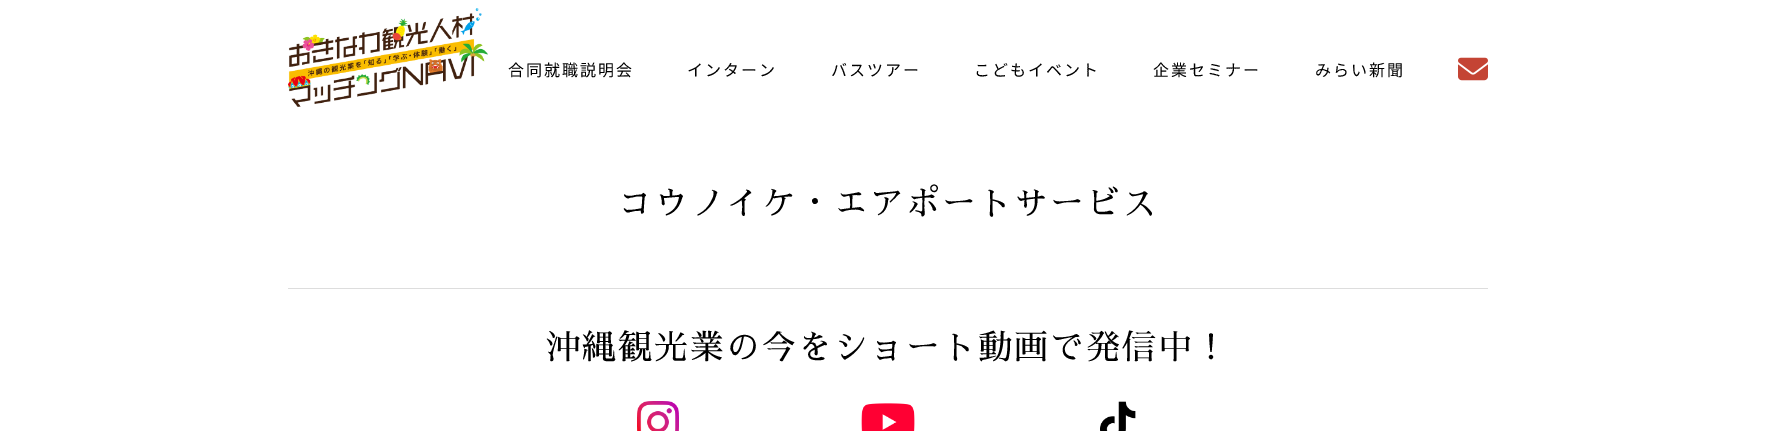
%!PS-Adobe-3.0
%%BoundingBox: 0 0 1776 431
%%LanguageLevel: 3
%%Pages: 1
%%EndComments
%%BeginProlog
/setink { dup -16 bitshift 255 div exch dup -8 bitshift 255 and 255 div exch 255 and 255 div setrgbcolor } def
/usefont { [ exch dup neg 0 0 3 -1 roll 0 0 ] selectfont } def
/drawimage { 5 dict begin { /h /w /y /x /name } { exch def } forall
  gsave x y translate w h scale
  w h 8 [w 0 0 h 0 0] name (r) file false 3 colorimage grestore end } def
%%EndProlog
%%BeginSetup
<< /PageSize [1776 431] >> setpagedevice
%%EndSetup
%%Page: 1 1
0 431 translate 1 -1 scale
4 setmiterlimit
16#FFFFFF setink
0 0 1776 431 rectfill
(img1.raw) 288 8 200 99 drawimage
/NotoSansJP-Regular 16 usefont
16#000000 setink
508 76 moveto 2 0 (合同就職説明会) ashow
687 76 moveto 2 0 (インターン) ashow
831 76 moveto 2 0 (バスツアー) ashow
974 76 moveto 2 0 (こどもイベント) ashow
1153 76 moveto 2 0 (企業セミナー) ashow
1315 76 moveto 2 0 (みらい新聞) ashow
(img2.raw) 1458 57 30 24 drawimage
/SawarabiMincho-Regular 34 usefont
618 215 moveto 2 0 (コウノイケ・エアポートサービス) ashow
16#DDDDDD setink
288 288 1200 1 rectfill
16#000000 setink
546 359 moveto 2 0 (沖縄観光業の今をショート動画で発信中！) ashow
(img3.raw) 637 401 42 30 drawimage
(img4.raw) 861 403 54 28 drawimage
(img5.raw) 1100 401 36 30 drawimage
showpage
%%EOF
